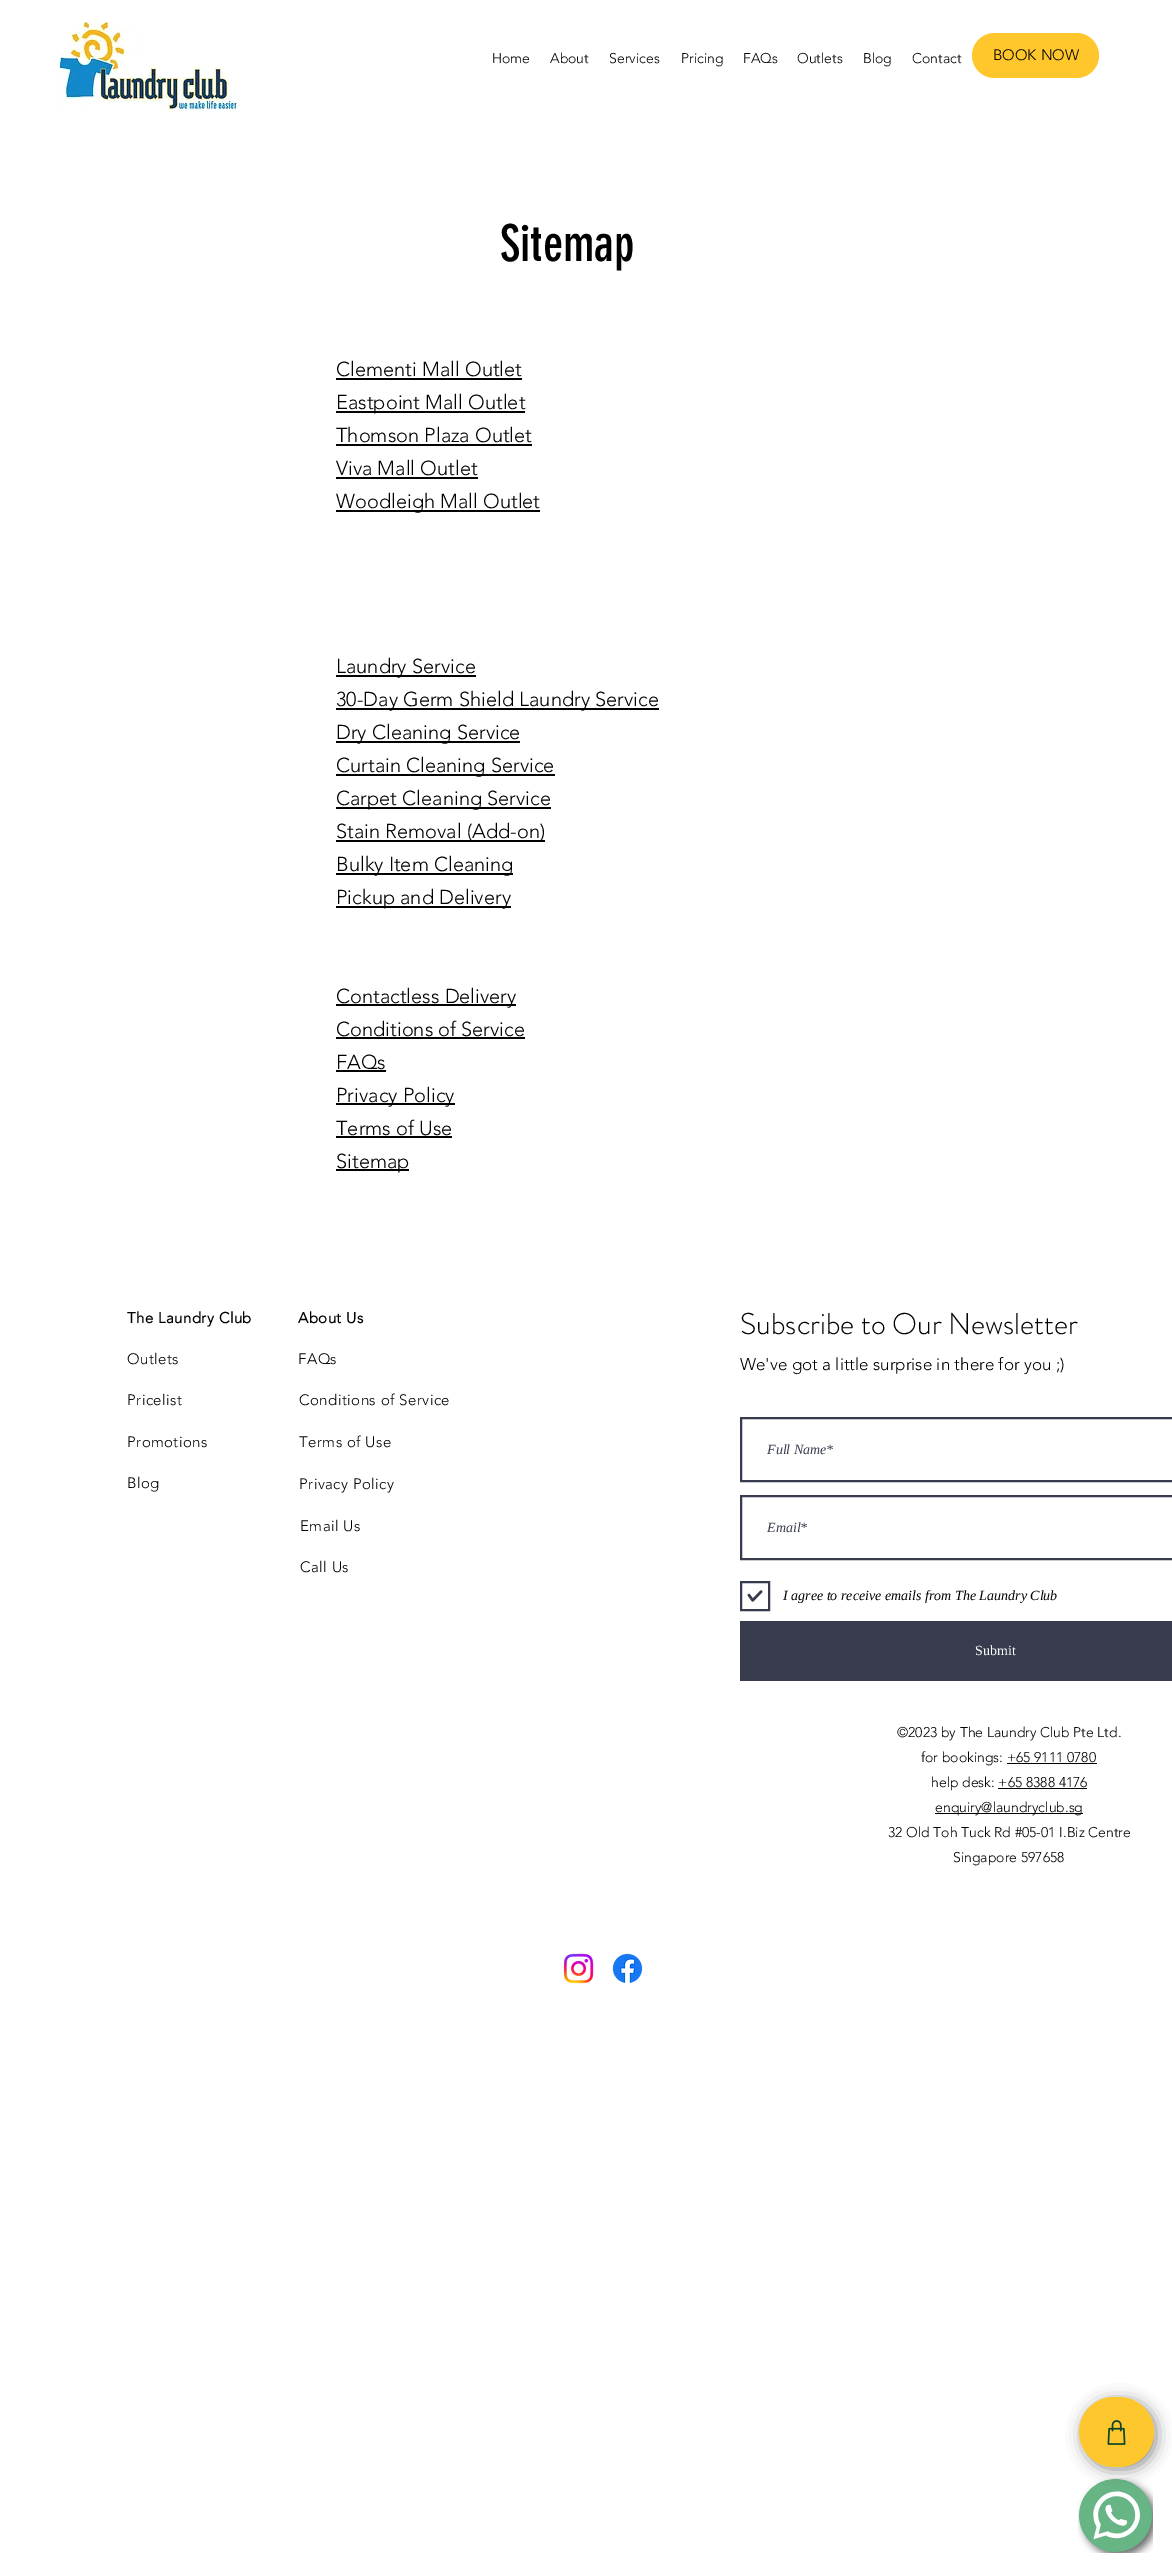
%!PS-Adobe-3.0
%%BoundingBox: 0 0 1172 2572
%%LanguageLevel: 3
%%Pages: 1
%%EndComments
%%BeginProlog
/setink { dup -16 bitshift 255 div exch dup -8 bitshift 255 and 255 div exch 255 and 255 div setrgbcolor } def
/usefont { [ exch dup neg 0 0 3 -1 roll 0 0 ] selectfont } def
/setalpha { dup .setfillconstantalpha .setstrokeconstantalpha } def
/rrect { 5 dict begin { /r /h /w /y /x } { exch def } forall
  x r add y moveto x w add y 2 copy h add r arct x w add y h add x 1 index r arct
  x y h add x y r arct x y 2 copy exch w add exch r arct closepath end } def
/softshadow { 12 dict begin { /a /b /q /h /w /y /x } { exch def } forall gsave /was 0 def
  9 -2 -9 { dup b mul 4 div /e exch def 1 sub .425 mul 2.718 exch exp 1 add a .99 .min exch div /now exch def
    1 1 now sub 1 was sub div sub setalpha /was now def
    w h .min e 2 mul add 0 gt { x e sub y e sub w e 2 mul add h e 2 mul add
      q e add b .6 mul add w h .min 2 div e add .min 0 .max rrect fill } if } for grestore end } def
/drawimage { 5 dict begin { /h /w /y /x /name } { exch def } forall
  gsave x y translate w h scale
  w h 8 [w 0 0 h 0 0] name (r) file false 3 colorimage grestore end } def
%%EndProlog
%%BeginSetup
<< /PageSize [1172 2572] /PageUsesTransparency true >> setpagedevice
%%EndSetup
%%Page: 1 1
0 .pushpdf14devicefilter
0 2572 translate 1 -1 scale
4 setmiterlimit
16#FFFFFF setink
0 0 1172 2572 rectfill
(img1.raw) 60 22 180 89 drawimage
/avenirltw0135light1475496-Light 14 usefont
16#000000 setink
[
    [(Home) 492 63]
    [(About) 550 63]
    [(Services) 609 63]
    [(Pricing) 681 63]
    [(FAQs) 743 63]
    [(Outlets) 797 63]
    [(Blog) 863 63]
    [(Contact) 912 63]
] { aload pop moveto show } forall
16#FFC72C setink
972 33 127 45 22.5 rrect fill
/avenirltw0135light1475496-Light 15 usefont
16#000000 setink
993 60 moveto (BOOK NOW) show
/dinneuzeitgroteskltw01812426-Regular 50 usefont
500 261 moveto (Sitemap) show
/avenirltw0135light1475496-Light 20 usefont
336 376 moveto (Clementi Mall Outlet) show
336 378 186 2 rectfill
336 411 189 2 rectfill
336 409 moveto (Eastpoint Mall Outlet) show
336 442 moveto (Thomson Plaza Outlet) show
336 444 196 2 rectfill
336 475 moveto (Viva Mall Outlet) show
336 477 142 2 rectfill
336 510 204 2 rectfill
336 508 moveto (Woodleigh Mall Outlet) show
336 675 140 2 rectfill
336 673 moveto (Laundry Service) show
336 708 323 2 rectfill
336 706 moveto (30-Day Germ Shield Laundry Service) show
336 741 184 2 rectfill
336 739 moveto (Dry Cleaning Service) show
336 774 219 2 rectfill
336 772 moveto (Curtain Cleaning Service) show
336 807 215 2 rectfill
336 805 moveto (Carpet Cleaning Service) show
336 840 209 2 rectfill
336 838 moveto (Stain Removal \(Add-on\)) show
336 873 177 2 rectfill
336 871 moveto (Bulky Item Cleaning) show
336 906 175 2 rectfill
336 904 moveto (Pickup and Delivery) show
336 1004 180 2 rectfill
336 1003 moveto (Contactless Delivery) show
336 1036 moveto (Conditions of Service) show
336 1037 189 2 rectfill
336 1069 moveto (FAQs) show
336 1070 50 2 rectfill
336 1103 119 2 rectfill
336 1102 moveto (Privacy Policy) show
336 1135 moveto (Terms of Use) show
336 1136 116 2 rectfill
336 1169 73 2 rectfill
336 1168 moveto (Sitemap) show
/avenirltw0135light1475496-Bold 15 usefont
127 1323 moveto 0.45 0 (The Laundry Club) ashow
/avenirltw0135light1475496-Light 15 usefont
127 1364 moveto 0.45 0 (Outlets) ashow
127 1405 moveto 0.45 0 (Pricelist) ashow
127 1447 moveto 0.45 0 (Promotions) ashow
127 1488 moveto 0.45 0 (Blog) ashow
/avenirltw0135light1475496-Bold 15 usefont
298 1323 moveto 0.45 0 (About Us) ashow
/avenirltw0135light1475496-Light 15 usefont
298 1364 moveto 0.45 0 (FAQs) ashow
299 1405 moveto 0.45 0 (Conditions of Service) ashow
299 1447 moveto 0.45 0 (Terms of Use) ashow
299 1489 moveto 0.45 0 (Privacy Policy) ashow
300 1531 moveto 0.45 0 (Email Us) ashow
300 1572 moveto 0.45 0 (Call Us) ashow
/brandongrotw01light-Light 30 usefont
740 1334 moveto (Subscribe to Our Newsletter) show
/avenirltw0135light1475496-Light 17 usefont
740 1370 moveto (We've got a little surprise in there for you ;\)) show
16#373B4D setink
2 setlinewidth
741 1418 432 63 rectstroke
/LiberationSerif-Italic 14 usefont
767 1454 moveto (Full Name*) show
741 1496 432 63 rectstroke
767 1532 moveto (Email*) show
741 1582 28 28 rectstroke
(img2.raw) 747 1590 16 12 drawimage
16#000000 setink
783 1600 moveto (I agree to receive emails from The Laundry Club) show
16#373B4D setink
740 1621 432 60 rectfill
/LiberationSerif-Regular 14 usefont
16#FFFFFF setink
975 1655 moveto (Submit) show
/avenirltw0135light1475496-Light 14 usefont
16#000000 setink
897 1737 moveto (©2023 by The Laundry Club Pte Ltd.) show
921 1762 moveto (for bookings: +65 9111 0780) show
1007 1763 90 1 rectfill
931 1787 moveto (help desk: +65 8388 4176) show
998 1788 89 1 rectfill
935 1813 148 1 rectfill
[
    [(enquiry@laundryclub.sg) 935 1812]
    [(32 Old Toh Tuck Rd #05-01 I.Biz Centre) 888 1837]
    [(Singapore 597658) 953 1862]
] { aload pop moveto show } forall
(img3.raw) 563 1953 31 31 drawimage
(img4.raw) 612 1953 31 30 drawimage
(img6.raw) 1078 2478 75 75 drawimage
16#404040 setink
1083 2401 73 68 34 8 0.65 softshadow
16#FFC72E setink
1079 2397 75 70 35 rrect fill
(img5.raw) 1107 2420 19 25 drawimage
.poppdf14devicefilter showpage
%%EOF
